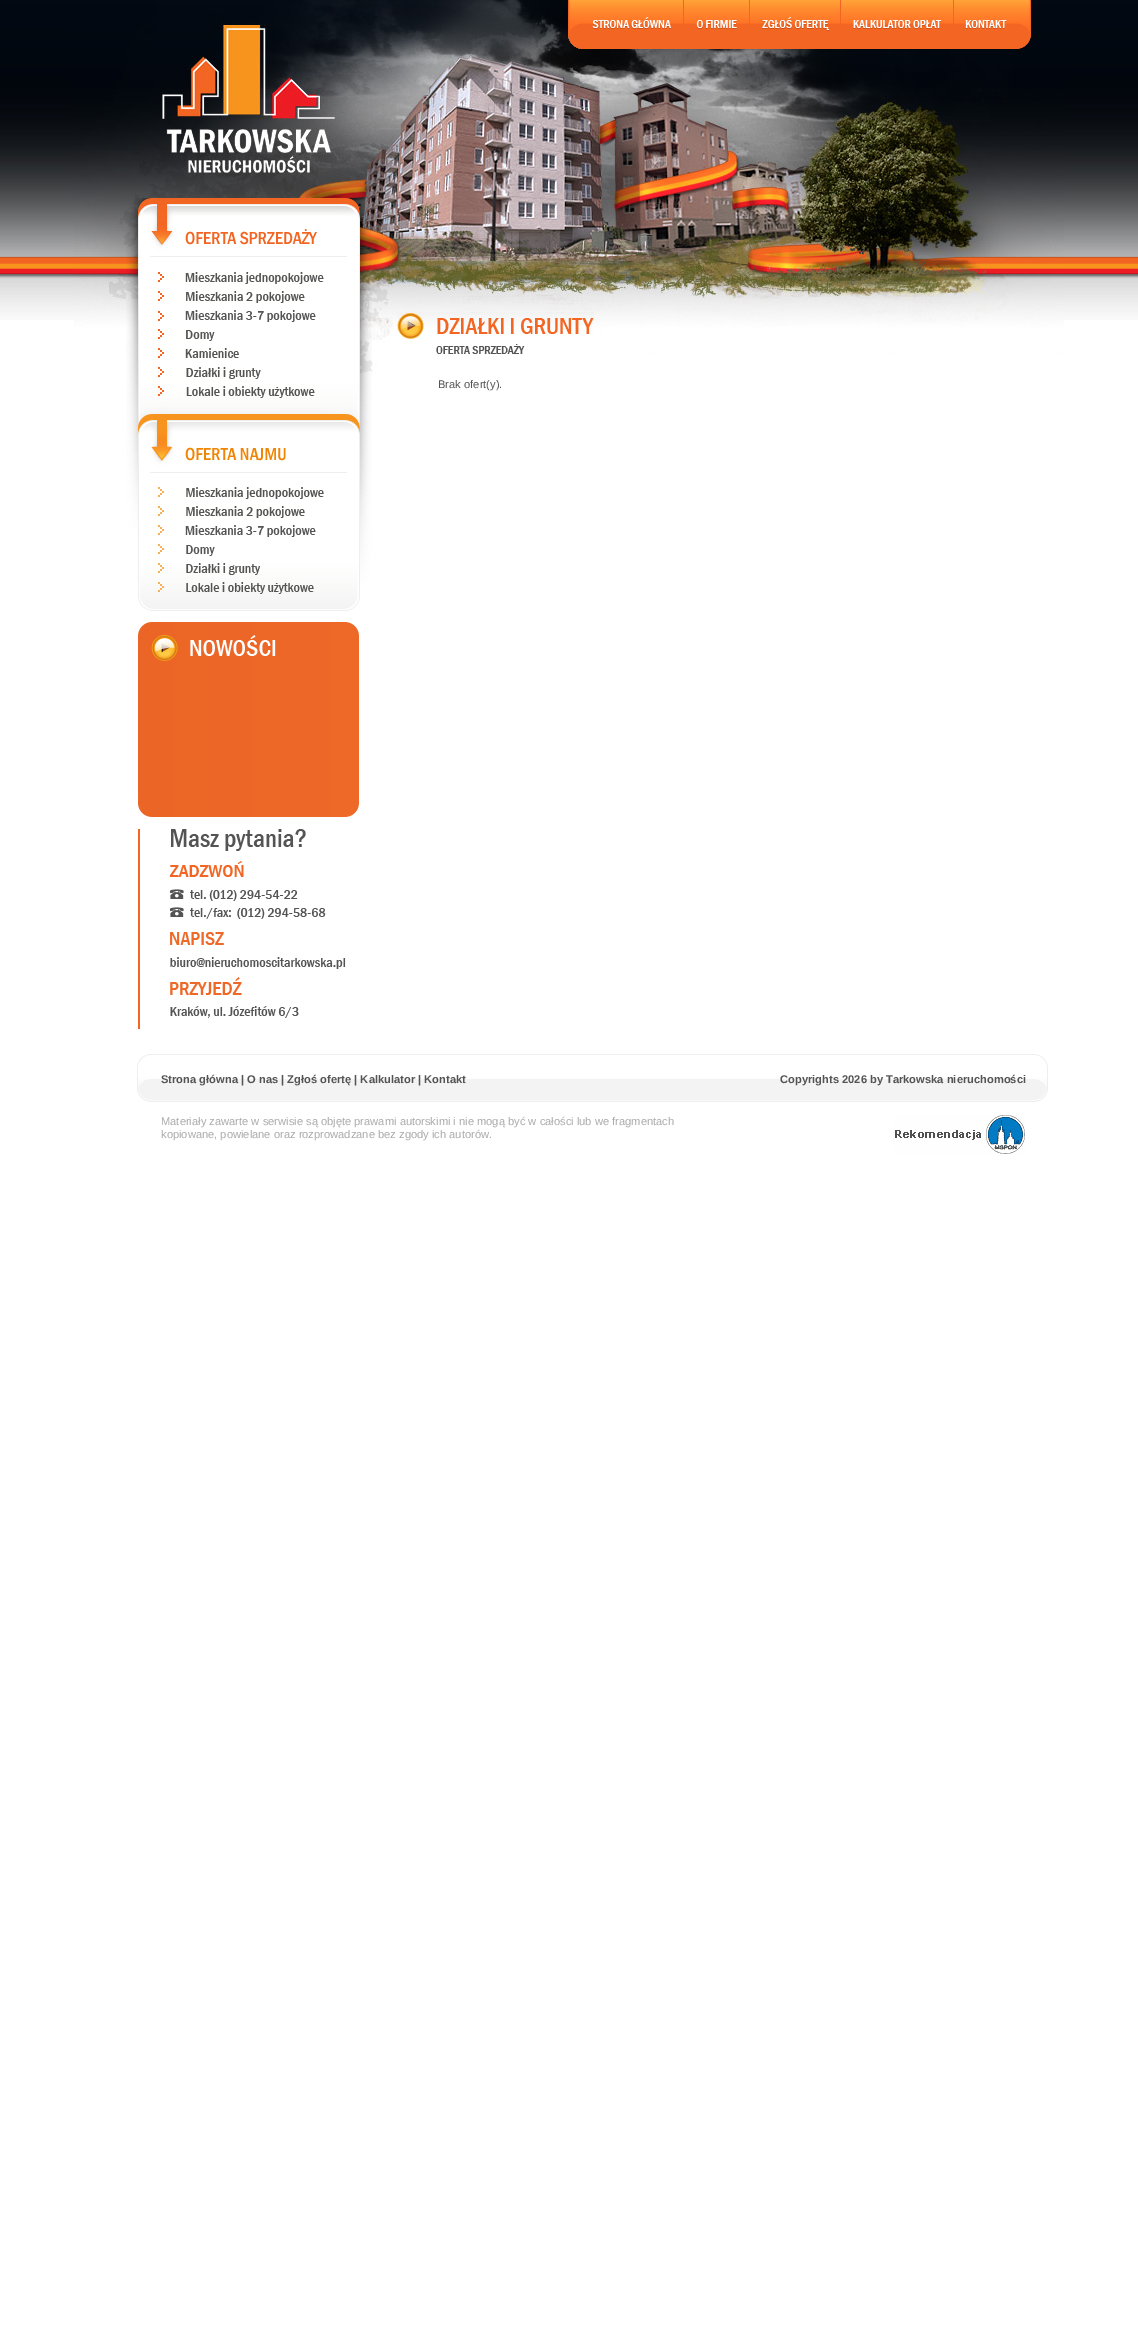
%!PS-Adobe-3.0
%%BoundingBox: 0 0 1138 2347
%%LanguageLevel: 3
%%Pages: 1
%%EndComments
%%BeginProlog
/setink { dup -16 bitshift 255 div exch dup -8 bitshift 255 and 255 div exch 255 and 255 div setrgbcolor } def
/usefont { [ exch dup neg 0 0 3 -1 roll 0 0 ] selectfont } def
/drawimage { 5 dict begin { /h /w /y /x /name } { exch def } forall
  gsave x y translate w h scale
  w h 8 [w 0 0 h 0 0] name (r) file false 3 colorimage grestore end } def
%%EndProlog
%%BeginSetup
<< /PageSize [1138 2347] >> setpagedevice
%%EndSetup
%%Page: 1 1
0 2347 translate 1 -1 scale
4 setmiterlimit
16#FFFFFF setink
0 0 1138 2347 rectfill
(img1.raw) 0 0 1138 320 drawimage
(img2.raw) 74 0 990 374 drawimage
(img3.raw) 568 0 116 49 drawimage
(img4.raw) 684 0 66 49 drawimage
(img5.raw) 750 0 91 49 drawimage
(img6.raw) 841 0 113 49 drawimage
(img7.raw) 954 0 77 49 drawimage
(img8.raw) 126 198 246 413 drawimage
(img9.raw) 158 272 166 12 drawimage
(img10.raw) 158 291 147 12 drawimage
(img11.raw) 158 310 158 12 drawimage
(img12.raw) 158 329 57 12 drawimage
(img13.raw) 158 348 81 10 drawimage
(img14.raw) 158 367 103 12 drawimage
(img15.raw) 158 386 157 12 drawimage
(img16.raw) 158 487 166 12 drawimage
(img17.raw) 158 506 147 12 drawimage
(img18.raw) 158 525 158 12 drawimage
(img19.raw) 158 544 57 12 drawimage
(img20.raw) 158 563 103 12 drawimage
(img21.raw) 158 582 156 12 drawimage
(img22.raw) 138 622 221 195 drawimage
(img23.raw) 138 829 208 200 drawimage
(img24.raw) 397 312 197 27 drawimage
(img25.raw) 436 344 89 10 drawimage
/LiberationSans-Regular 11.15 usefont
16#545454 setink
438 388 moveto (Brak ofert\(y\).) show
(img26.raw) 137 1054 911 48 drawimage
/LiberationSans-Bold 11.15 usefont
161 1083 moveto (Strona główna | O nas | Zgłoś ofertę | Kalkulator | Kontakt) show
780 1083 moveto (Copyrights 2026 by Tarkowska nieruchomości) show
/LiberationSans-Regular 11.15 usefont
16#AAAAAA setink
161 1125 moveto (Materiały zawarte w serwisie są objęte prawami autorskimi i nie mogą być w całości lub we fragmentach) show
161 1138 moveto (kopiowane, powielane oraz rozprowadzane bez zgody ich autorów.) show
(img27.raw) 895 1115 130 39 drawimage
showpage
%%EOF
